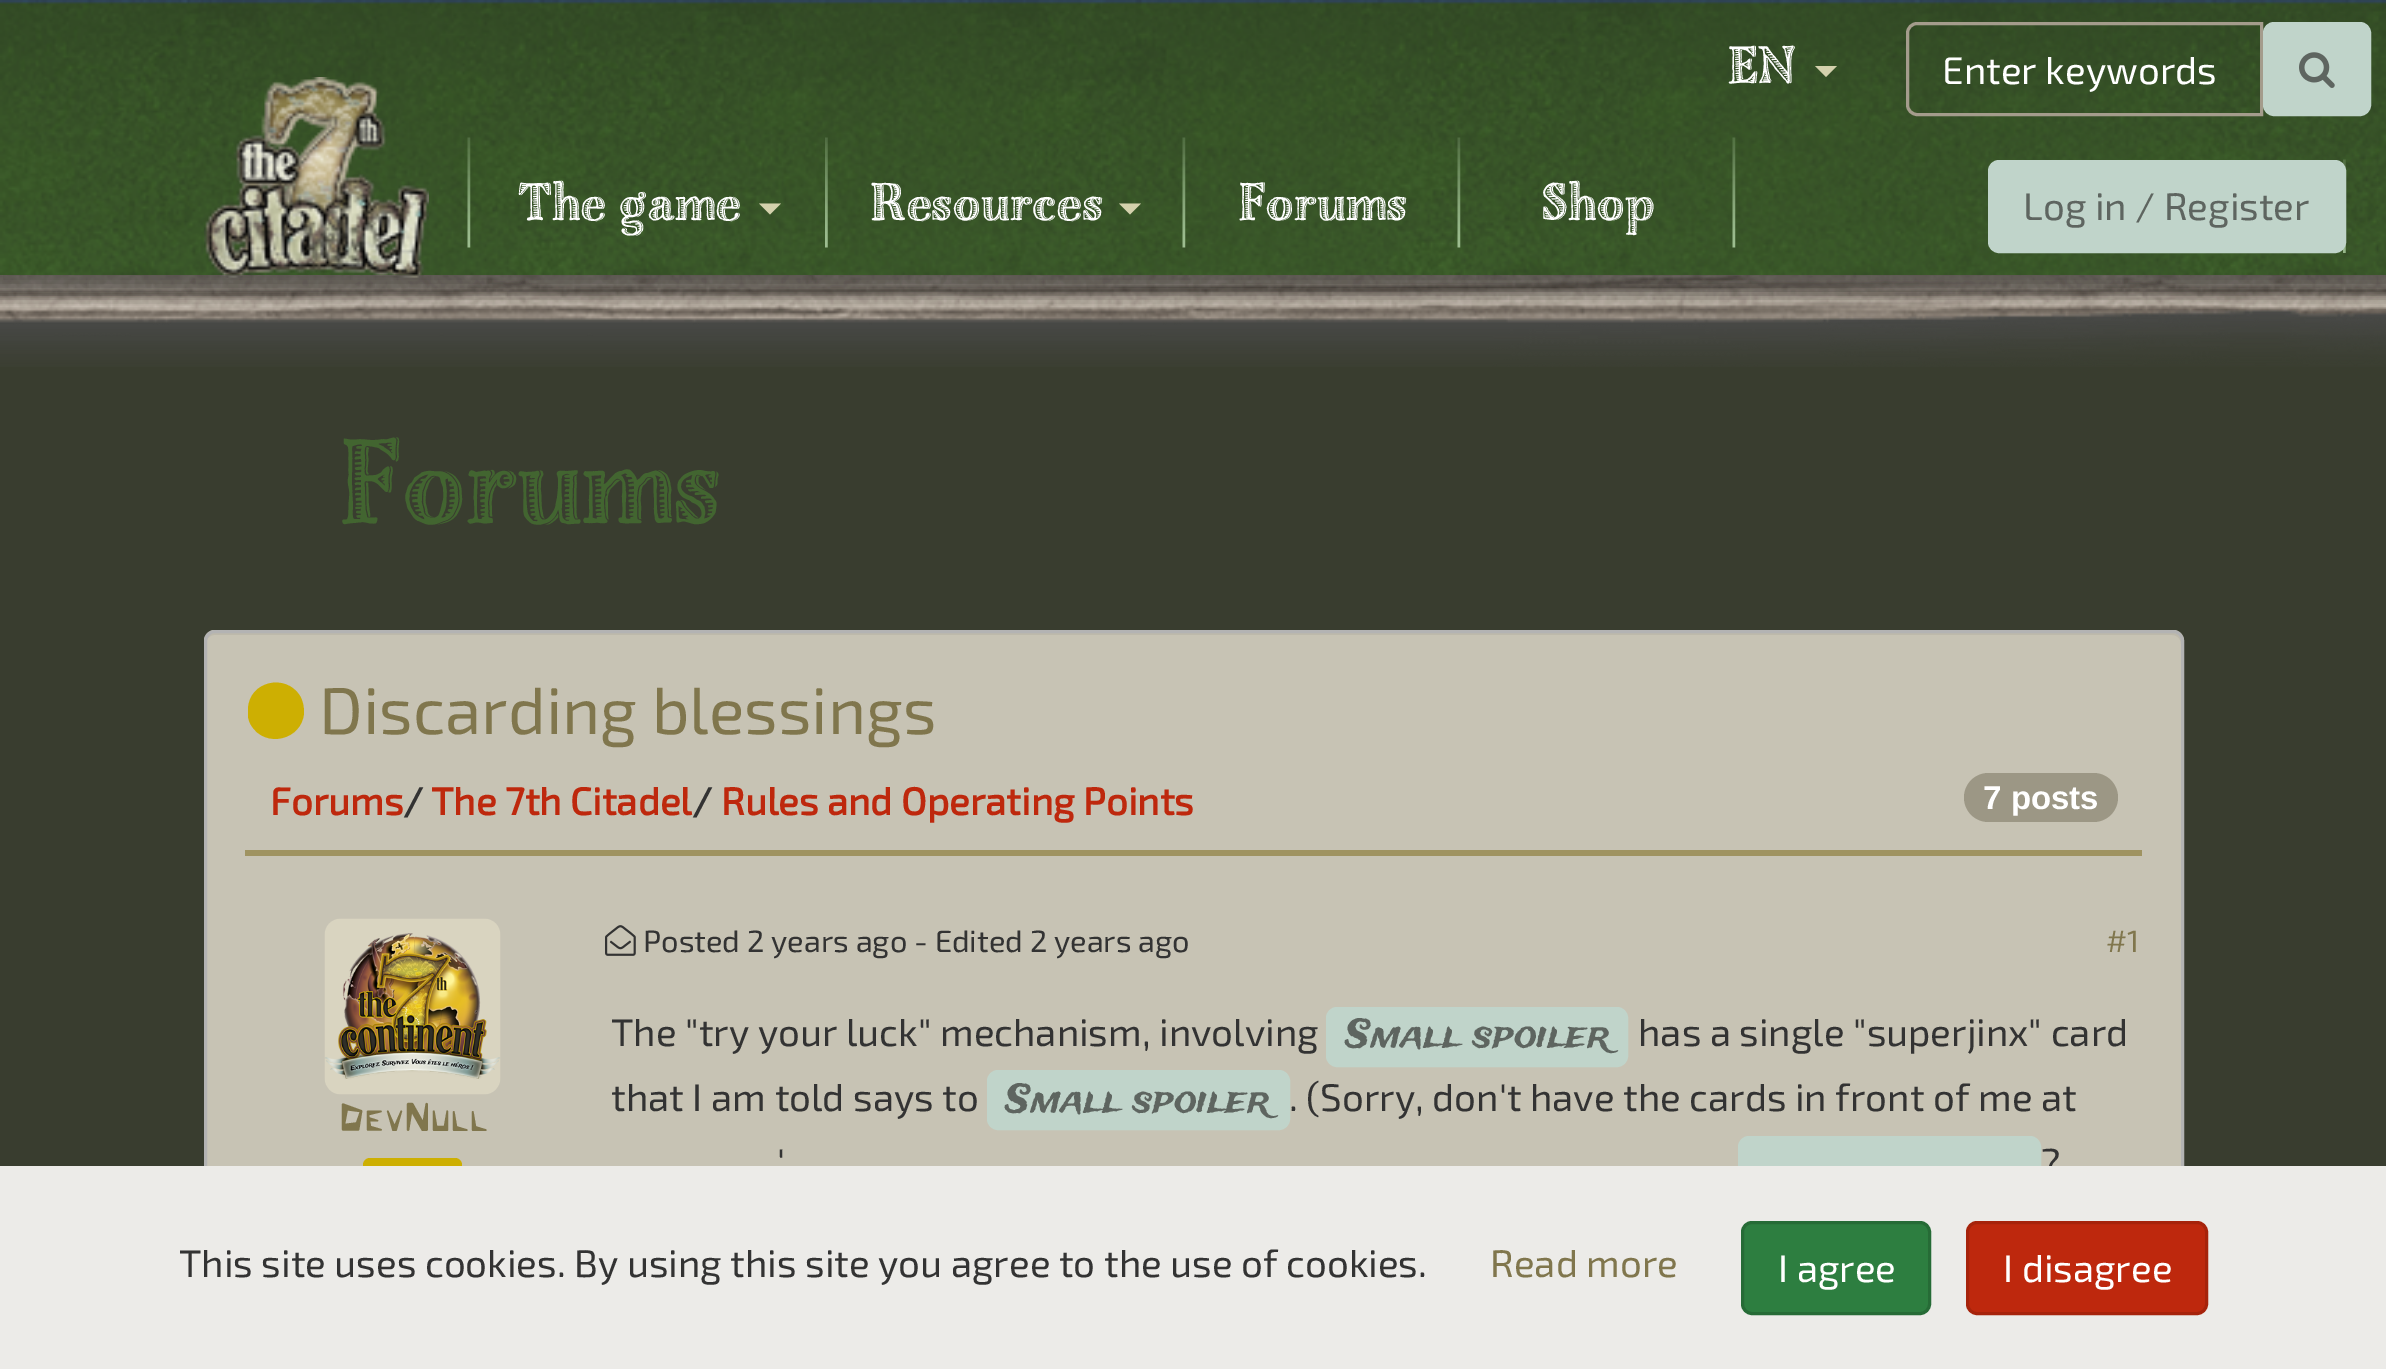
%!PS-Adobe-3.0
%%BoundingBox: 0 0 2386 1369
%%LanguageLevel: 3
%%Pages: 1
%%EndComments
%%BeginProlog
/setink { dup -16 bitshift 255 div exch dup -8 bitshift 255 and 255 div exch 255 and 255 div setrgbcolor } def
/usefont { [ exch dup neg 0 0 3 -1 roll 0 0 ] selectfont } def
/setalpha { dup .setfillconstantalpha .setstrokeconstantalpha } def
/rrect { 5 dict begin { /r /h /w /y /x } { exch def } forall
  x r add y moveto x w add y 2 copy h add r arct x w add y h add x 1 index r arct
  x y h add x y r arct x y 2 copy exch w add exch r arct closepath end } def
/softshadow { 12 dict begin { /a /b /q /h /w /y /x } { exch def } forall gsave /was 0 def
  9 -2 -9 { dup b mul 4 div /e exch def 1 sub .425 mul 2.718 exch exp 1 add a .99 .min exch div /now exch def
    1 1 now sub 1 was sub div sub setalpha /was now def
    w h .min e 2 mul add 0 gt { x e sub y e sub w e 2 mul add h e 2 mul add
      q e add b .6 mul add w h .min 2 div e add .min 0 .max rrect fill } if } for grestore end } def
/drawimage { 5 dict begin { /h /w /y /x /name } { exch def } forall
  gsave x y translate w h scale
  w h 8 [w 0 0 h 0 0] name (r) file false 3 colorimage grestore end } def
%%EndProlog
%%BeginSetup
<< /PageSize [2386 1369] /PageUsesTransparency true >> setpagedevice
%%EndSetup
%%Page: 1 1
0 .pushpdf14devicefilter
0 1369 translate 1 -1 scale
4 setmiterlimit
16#393D2F setink
0 0 2386 1369 rectfill
(img10.raw) 0 275 2386 92 drawimage
16#000000 setink
-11 -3 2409 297 0 8 0.5 softshadow
(img1.raw) 0 0 2386 275 drawimage
(img2.raw) 467 137 4 111 drawimage
(img3.raw) 204 77 225 201 drawimage
/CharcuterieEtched-Regular 56 usefont
16#FFFFFF setink
1728 83 moveto (EN) show
16#D4D1AD setink
1815 66 moveto 1837 66 lineto 1826 77 lineto closepath fill
16#A49C8C setink
3 setlinewidth
1917 23.5 moveto 2261.5 23.5 lineto 2261.5 114.5 lineto 1917 114.5 lineto 1912 114.5 1907.5 110 1907.5 105 curveto 1907.5 33 lineto 1907.5 28 1912 23.5 1917 23.5 curveto closepath stroke
/Exo2-Regular 38.5 usefont
16#FFFFFF setink
1942 84 moveto (Enter keywords) show
16#C0D4CA setink
2264.5 23.5 105 91 9.5 rrect gsave fill grestore
stroke
(img4.raw) 2299 52 36 36 drawimage
(img5.raw) 825 137 3 111 drawimage
/CharcuterieEtched-Regular 56 usefont
16#FFFFFF setink
518 220 moveto (The game) show
16#D4D1AD setink
759 203.5 moveto 781 203.5 lineto 770 214.5 lineto closepath fill
(img6.raw) 1182 137 4 111 drawimage
16#FFFFFF setink
871 220 moveto (Resources) show
16#D4D1AD setink
1119 203.5 moveto 1141 203.5 lineto 1130 214.5 lineto closepath fill
(img7.raw) 1457 137 4 111 drawimage
16#FFFFFF setink
1239 220 moveto (Forums) show
(img8.raw) 1732 137 4 111 drawimage
1542 220 moveto (Shop) show
(img9.raw) 2343 159 3 94 drawimage
16#C0D4CA setink
1989.5 161.5 355 90 9.5 rrect gsave fill grestore
stroke
/Exo2-Regular 38.5 usefont
16#5E6560 setink
2023 220 moveto (Log in / Register) show
/CharcuterieEtched-Regular 126.5 usefont
16#426530 setink
341 523 moveto (Forums) show
16#C7C3B4 setink
204 630 1980 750 11 rrect fill
16#BDB9AB setink
214 635 moveto 2172 635 lineto 2177 635 2181 639 2181 644 curveto 2181 641 lineto 2181 637 2177 633 2173 633 curveto 214 633 lineto 210 633 206 637 206 641 curveto 206 644 lineto 206 639 210 635 214 635 curveto closepath fill
16#B3B3B3 setink
205.5 631.5 1977 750 9.5 rrect stroke
gsave
248 674 1892 77 rectclip
16#CDAF02 setink
300 696 moveto 303 701 304 707 304 713 curveto 302 740 265 749 251 725 curveto 248 720 247 714 248 709 curveto 249 681 286 673 300 696 curveto closepath fill
grestore
/Exo2-Regular 66 usefont
16#80764D setink
319 734 moveto (Discarding blessings) show
16#9F9361 setink
245 850 1897 6 rectfill
/Exo2-Bold 38.5 usefont
16#BE280D setink
270 815 moveto (Forums) show
16#333333 setink
403 815 moveto (/) show
16#BE280D setink
431 815 moveto (The 7th Citadel) show
16#333333 setink
692 815 moveto (/) show
16#BE280D setink
721 815 moveto (Rules and Operating Points) show
16#9C9785 setink
1964 773 154 49 24.5 rrect fill
/LiberationSans-Bold 33 usefont
16#FFFFFF setink
1983 809 moveto (7 posts) show
(img11.raw) 324 918 177 177 drawimage
/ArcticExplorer-Regular 38.5 usefont
16#80764D setink
338 1131 moveto (DevNull) show
16#CDAF02 setink
363 1158 99 47 7 rrect fill
(img12.raw) 605 925 31 31 drawimage
/Exo2-Regular 30.75 usefont
16#333333 setink
643 952 moveto (Posted 2 years ago - Edited 2 years ago) show
16#80764D setink
2106 952 moveto (#1) show
/Exo2-Regular 38.5 usefont
16#333333 setink
611 1046 moveto (The "try your luck" mechanism, involving) show
16#C0D4CA setink
1327.5 1008.5 299 57 9.5 rrect gsave fill grestore
stroke
/TradeWinds-Regular 38.5 usefont
16#5E6560 setink
1346 1047 moveto (Small spoiler) show
/Exo2-Regular 38.5 usefont
16#333333 setink
1638 1046 moveto (has a single "superjinx" card) show
611 1111 moveto (that I am told says to) show
16#C0D4CA setink
988.5 1071.5 300 57 9.5 rrect gsave fill grestore
stroke
/TradeWinds-Regular 38.5 usefont
16#5E6560 setink
1006 1112 moveto (Small spoiler) show
/Exo2-Regular 38.5 usefont
16#333333 setink
1289 1111 moveto (. \(Sorry, don't have the cards in front of me at) show
777 1176 moveto (') show
16#C0D4CA setink
1739.5 1137.5 300 57 9.5 rrect gsave fill grestore
stroke
16#333333 setink
2041 1176 moveto (?) show
16#ECEBE8 setink
0 1166 2386 203 rectfill
16#333333 setink
179 1277 moveto (This site uses cookies. By using this site you agree to the use of cookies.) show
16#80764D setink
1490 1277 moveto (Read more) show
16#2D7E40 setink
1742.5 1222.5 187 91 9.5 rrect gsave fill grestore
16#266B36 setink
stroke
16#FFFFFF setink
1778 1282 moveto (I agree) show
16#BE280D setink
1967.5 1222.5 239 91 9.5 rrect gsave fill grestore
16#A6230B setink
stroke
16#FFFFFF setink
2003 1282 moveto (I disagree) show
.poppdf14devicefilter showpage
%%EOF
